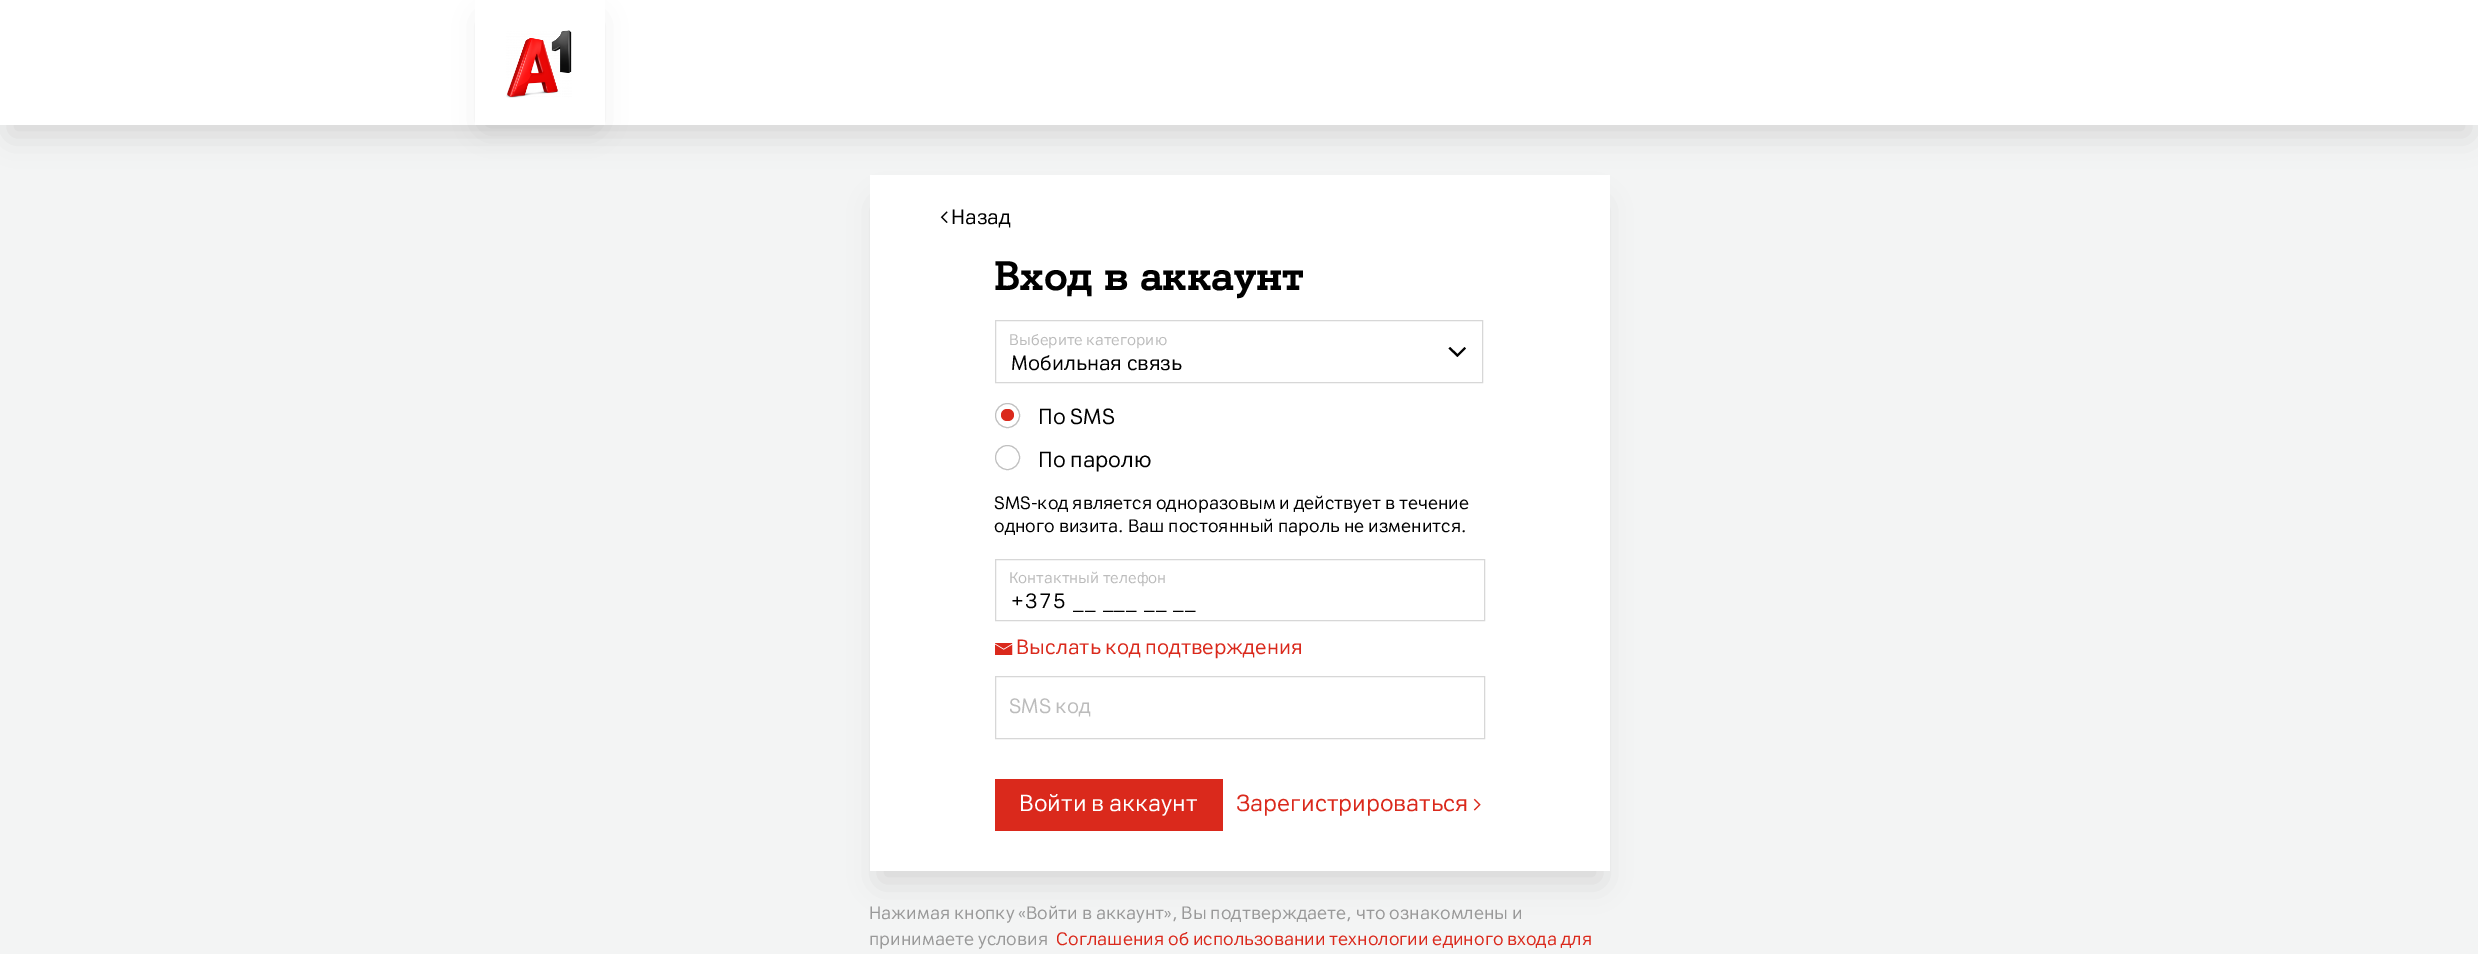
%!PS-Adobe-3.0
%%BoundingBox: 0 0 2478 954
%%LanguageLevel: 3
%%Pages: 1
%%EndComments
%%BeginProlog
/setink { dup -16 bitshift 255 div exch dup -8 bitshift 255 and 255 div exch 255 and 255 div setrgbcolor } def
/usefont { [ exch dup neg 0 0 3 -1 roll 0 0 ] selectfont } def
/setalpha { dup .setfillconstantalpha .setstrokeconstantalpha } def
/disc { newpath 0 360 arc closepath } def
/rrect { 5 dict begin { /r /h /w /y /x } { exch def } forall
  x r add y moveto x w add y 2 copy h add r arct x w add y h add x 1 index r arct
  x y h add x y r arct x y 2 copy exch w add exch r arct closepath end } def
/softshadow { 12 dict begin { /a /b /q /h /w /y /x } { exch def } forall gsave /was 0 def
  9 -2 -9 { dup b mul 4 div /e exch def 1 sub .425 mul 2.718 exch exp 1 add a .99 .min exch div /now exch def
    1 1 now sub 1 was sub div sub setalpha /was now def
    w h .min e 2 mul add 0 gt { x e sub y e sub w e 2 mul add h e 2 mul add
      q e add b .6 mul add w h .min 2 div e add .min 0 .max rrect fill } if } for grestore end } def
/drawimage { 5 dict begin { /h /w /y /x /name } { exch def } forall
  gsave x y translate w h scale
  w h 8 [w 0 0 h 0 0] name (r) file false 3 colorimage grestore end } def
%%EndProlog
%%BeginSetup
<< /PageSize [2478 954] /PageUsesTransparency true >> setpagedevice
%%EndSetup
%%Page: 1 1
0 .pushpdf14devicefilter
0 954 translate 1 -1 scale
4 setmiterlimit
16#F3F4F4 setink
0 0 2478 954 rectfill
16#000000 setink
880 205 720 676 0 15 0.12 softshadow
16#FFFFFF setink
870 175 740 696 rectfill
16#000000 setink
10 30 2459 105 0 15 0.12 softshadow
16#FFFFFF setink
0 0 2478 125 rectfill
gsave
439 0 moveto 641 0 lineto 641 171 lineto 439 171 lineto closepath 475 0 moveto 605 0 lineto 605 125 lineto 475 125 lineto closepath eoclip newpath
16#000000 setink
485 20 110 105 0 15 0.12 softshadow
grestore
(img1.raw) 506 30 66 68 drawimage
(img2.raw) 940 211 8 12 drawimage
/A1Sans-Regular 20 usefont
16#000000 setink
951 224 moveto (Назад) show
/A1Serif-Bold 40 usefont
994 290 moveto (Вход в аккаунт) show
/A1Sans-Regular 15 usefont
16#BCBCBC setink
1009 345 moveto (Выберите категорию) show
16#D7D7D7 setink
995.5 320.5 487 62 rectstroke
16#000000 setink
1450 347 moveto 1448.5 348.5 lineto 1457.5 357 lineto 1466 348.5 lineto 1464.5 347 lineto 1457.5 354 lineto closepath eofill
/A1Sans-Regular 20 usefont
1011 370 moveto (Мобильная связь) show
16#C0C0C0 setink
1007.5 415.5 12 disc stroke
16#DA291C setink
1001 409 13 12 6 rrect fill
/A1Sans-Regular 21.25 usefont
16#000000 setink
1038 424 moveto (По SMS) show
16#C0C0C0 setink
1007.5 457.5 12 disc stroke
16#000000 setink
1038 467 moveto (По паролю) show
/A1Sans-Regular 17.5 usefont
994 509 moveto (SMS-код является одноразовым и действует в течение) show
994 532 moveto (одного визита. Ваш постоянный пароль не изменится.) show
16#D7D7D7 setink
995.5 559.5 489 61 rectstroke
/A1Sans-Regular 15 usefont
16#BCBCBC setink
1009 583 moveto (Контактный телефон) show
/A1Sans-Regular 20 usefont
16#000000 setink
1011 608 moveto 1.4 0 (+375 __ ___ __ __) ashow
(img3.raw) 995 643 18 12 drawimage
16#DA291C setink
1016 654 moveto (Выслать код подтверждения) show
16#D7D7D7 setink
995.5 676.5 489 62 rectstroke
16#BCBCBC setink
1009 713 moveto (SMS код) show
16#DA291C setink
995 779 228 52 rectfill
/A1Sans-Regular 22.5 usefont
16#FFFFFF setink
1019 811 moveto (Войти в аккаунт) show
16#DA291C setink
1236 811 moveto (Зарегистрироваться) show
(img4.raw) 1473 798 8 13 drawimage
/A1Sans-Regular 17.5 usefont
16#999999 setink
869 919 moveto (Нажимая кнопку «Войти в аккаунт», Вы подтверждаете, что ознакомлены и) show
869 945 moveto (принимаете условия) show
16#DA291C setink
1056 945 moveto (Соглашения об использовании технологии единого входа для) show
.poppdf14devicefilter showpage
%%EOF
